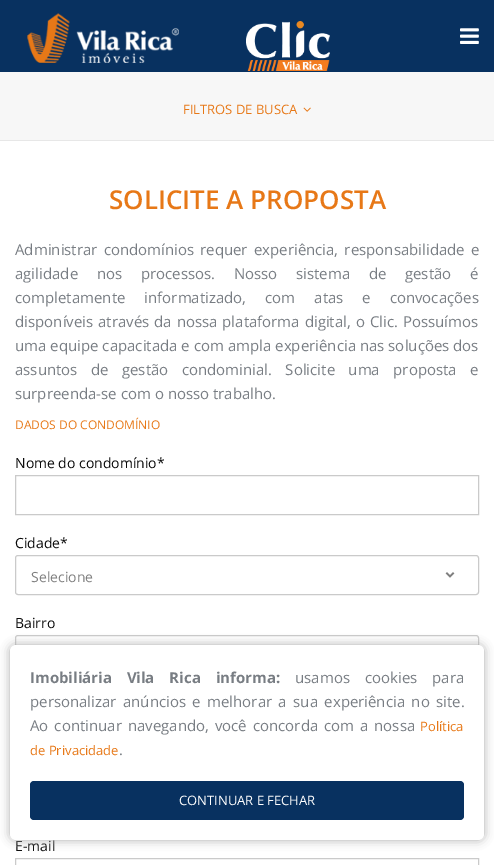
%!PS-Adobe-3.0
%%BoundingBox: 0 0 494 865
%%LanguageLevel: 3
%%Pages: 1
%%EndComments
%%BeginProlog
/setink { dup -16 bitshift 255 div exch dup -8 bitshift 255 and 255 div exch 255 and 255 div setrgbcolor } def
/usefont { [ exch dup neg 0 0 3 -1 roll 0 0 ] selectfont } def
/setalpha { dup .setfillconstantalpha .setstrokeconstantalpha } def
/rrect { 5 dict begin { /r /h /w /y /x } { exch def } forall
  x r add y moveto x w add y 2 copy h add r arct x w add y h add x 1 index r arct
  x y h add x y r arct x y 2 copy exch w add exch r arct closepath end } def
/softshadow { 12 dict begin { /a /b /q /h /w /y /x } { exch def } forall gsave /was 0 def
  9 -2 -9 { dup b mul 4 div /e exch def 1 sub .425 mul 2.718 exch exp 1 add a .99 .min exch div /now exch def
    1 1 now sub 1 was sub div sub setalpha /was now def
    w h .min e 2 mul add 0 gt { x e sub y e sub w e 2 mul add h e 2 mul add
      q e add b .6 mul add w h .min 2 div e add .min 0 .max rrect fill } if } for grestore end } def
/drawimage { 5 dict begin { /h /w /y /x /name } { exch def } forall
  gsave x y translate w h scale
  w h 8 [w 0 0 h 0 0] name (r) file false 3 colorimage grestore end } def
%%EndProlog
%%BeginSetup
<< /PageSize [494 865] /PageUsesTransparency true >> setpagedevice
%%EndSetup
%%Page: 1 1
0 .pushpdf14devicefilter
0 865 translate 1 -1 scale
4 setmiterlimit
16#FFFFFF setink
0 0 494 865 rectfill
16#083160 setink
0 0 494 72 rectfill
(img1.raw) 27 13 152 50 drawimage
(img2.raw) 246 21 84 50 drawimage
(img3.raw) 460 28 19 16 drawimage
16#F7F7F7 setink
0 72 494 68 rectfill
16#E7E7E7 setink
0 140 494 1 rectfill
/OpenSans-Regular 13 usefont
16#E77817 setink
183 114 moveto (FILTROS DE BUSCA) show
(img4.raw) 303 107 8 5 drawimage
/OpenSans-SemiBold 26 usefont
109 209 moveto (SOLICITE A PROPOSTA) show
/OpenSans-Regular 15 usefont
16#787D83 setink
15 255 moveto 2.25 0 32 (Administrar condomínios requer experiência, responsabilidade e) widthshow
15 279 moveto 14.75 0 32 (agilidade nos processos. Nosso sistema de gestão é) widthshow
15 303 moveto 15 0 32 (completamente informatizado, com atas e convocações) widthshow
15 327 moveto 1 0 32 (disponíveis através da nossa plataforma digital, o Clic. Possuímos) widthshow
15 351 moveto (uma equipe capacitada e com ampla experiência nas soluções dos) show
15 375 moveto 9.5 0 32 (assuntos de gestão condominial. Solicite uma proposta e) widthshow
15 399 moveto (surpreenda-se com o nosso trabalho.) show
/OpenSans-Regular 12 usefont
16#E77817 setink
15 429 moveto (DADOS DO CONDOMÍNIO) show
/OpenSans-Regular 14 usefont
16#0A0A0A setink
15 468 moveto (Nome do condomínio*) show
16#CACACA setink
15.5 475.5 463 39 rectstroke
16#0A0A0A setink
15 548 moveto (Cidade*) show
(img5.raw) 445 572 10 6 drawimage
16#CACACA setink
15.5 555.5 463 39 2.5 rrect stroke
16#7F7F7F setink
31 582 moveto (Selecione) show
16#0A0A0A setink
15 628 moveto (Bairro) show
16#CACACA setink
15.5 635.5 463 39 2.5 rrect stroke
16#0A0A0A setink
15 851 moveto (E-mail) show
16#CACACA setink
15.5 858.5 463 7 rectstroke
16#AAAAAA setink
10 645 474 195 6 5 1 softshadow
16#FFFFFF setink
10 645 474 195 6 rrect fill
/OpenSans-Bold 15 usefont
16#787D83 setink
30 683 moveto 11 0 32 (Imobiliária Vila Rica informa:) widthshow
/OpenSans-Regular 15 usefont
295 683 moveto 11 0 32 (usamos cookies para) widthshow
30 707 moveto 2.5 0 32 (personalizar anúncios e melhorar a sua experiência no site.) widthshow
30 731 moveto 2 0 32 (Ao continuar navegando, você concorda com a nossa) widthshow
/OpenSans-Regular 13 usefont
16#E77817 setink
420 731 moveto (Política) show
30 755 moveto (de Privacidade) show
/OpenSans-Regular 15 usefont
16#787D83 setink
119 755 moveto (.) show
16#083160 setink
30 781 434 39 4 rrect fill
/OpenSans-Regular 13 usefont
16#FFFFFF setink
179 805 moveto (CONTINUAR E FECHAR) show
.poppdf14devicefilter showpage
%%EOF
